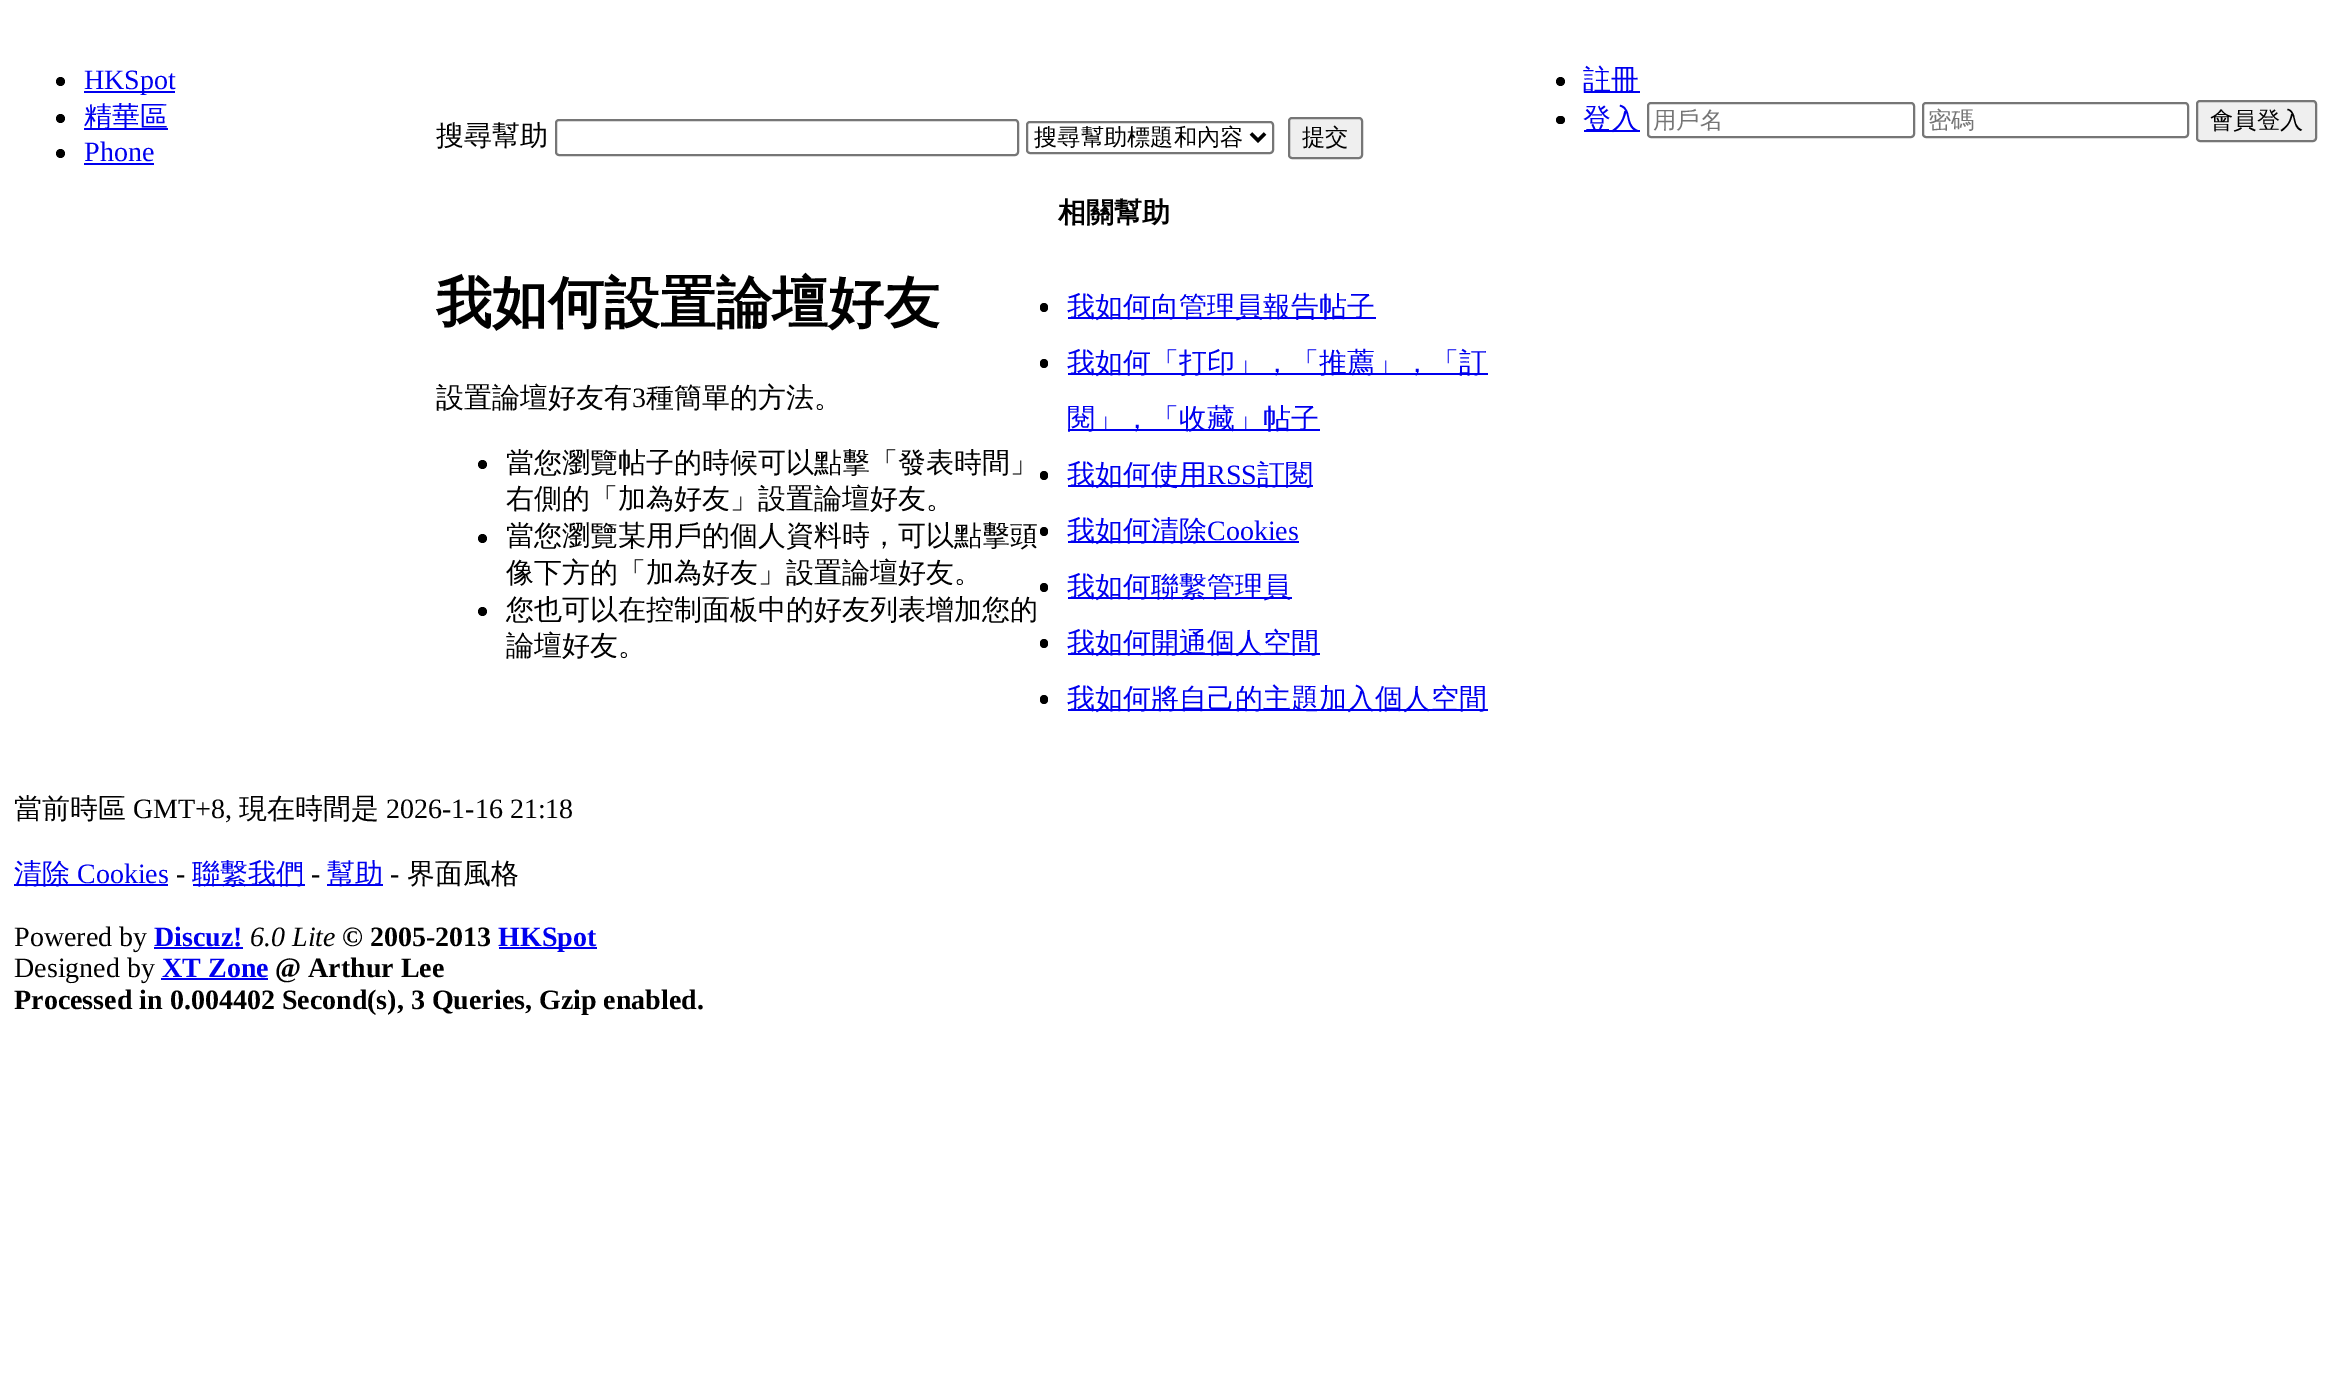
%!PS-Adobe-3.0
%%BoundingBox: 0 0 2331 1398
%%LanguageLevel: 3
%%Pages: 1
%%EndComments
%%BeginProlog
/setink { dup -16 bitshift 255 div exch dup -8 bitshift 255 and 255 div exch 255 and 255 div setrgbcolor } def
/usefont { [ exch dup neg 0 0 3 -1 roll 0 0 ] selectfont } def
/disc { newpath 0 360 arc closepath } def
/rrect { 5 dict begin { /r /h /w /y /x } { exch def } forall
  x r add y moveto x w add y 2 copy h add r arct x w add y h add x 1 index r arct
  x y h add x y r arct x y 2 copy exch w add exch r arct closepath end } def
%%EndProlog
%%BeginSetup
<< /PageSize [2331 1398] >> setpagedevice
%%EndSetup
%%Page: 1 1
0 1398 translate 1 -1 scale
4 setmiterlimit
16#FFFFFF setink
0 0 2331 1398 rectfill
16#000000 setink
60.5 81.5 4.5 disc fill
16#0000EE setink
84 91 91 2 rectfill
/LiberationSerif-Regular 28 usefont
84 89 moveto (HKSpot) show
16#000000 setink
60.5 118.5 4.5 disc fill
16#0000EE setink
84 128 84 2 rectfill
/WenQuanYiZenHei-Medium 28 usefont
84 126 moveto (精華區) show
16#000000 setink
60.5 153.5 4.5 disc fill
/LiberationSerif-Regular 28 usefont
16#0000EE setink
84 161 moveto (Phone) show
84 163 70 2 rectfill
16#000000 setink
1560.5 81.5 4.5 disc fill
16#0000EE setink
1584 91 56 2 rectfill
/WenQuanYiZenHei-Medium 28 usefont
1583 89 moveto (註冊) show
16#000000 setink
1556 116 9 8 4 rrect fill
16#0000EE setink
1584 130 56 2 rectfill
1583 128 moveto (登入) show
16#767676 setink
2 setlinewidth
1648 103 266 34 3 rrect stroke
/WenQuanYiZenHei-Medium 23.25 usefont
16#757575 setink
1653 128 moveto (用戶名) show
16#767676 setink
1923 103 265 34 3 rrect stroke
16#757575 setink
1928 128 moveto (密碼) show
16#EFEFEF setink
2197 101 119 40 3 rrect gsave fill grestore
16#767676 setink
stroke
16#000000 setink
2210 128 moveto (會員登入) show
/WenQuanYiZenHei-Medium 28 usefont
436 145 moveto (搜尋幫助) show
16#767676 setink
556 120 462 35 3 rrect stroke
1027 122 246 31 3 rrect stroke
16#000000 setink
3.5 setlinewidth
1251 133.5 moveto 1258 140.5 lineto 1265 133.5 lineto stroke
/WenQuanYiZenHei-Medium 23.25 usefont
1034 145 moveto (搜尋幫助標題和內容) show
16#EFEFEF setink
1289 118 73 40 3 rrect gsave fill grestore
16#767676 setink
2 setlinewidth
stroke
16#000000 setink
1302 145 moveto (提交) show
/WenQuanYiZenHei-Bold 56 usefont
436 322 moveto (我如何設置論壇好友) show
/WenQuanYiZenHei-Medium 28 usefont
436 407 moveto (設置論壇好友有) show
/LiberationSerif-Regular 28 usefont
632 407 moveto (3) show
/WenQuanYiZenHei-Medium 28 usefont
646 407 moveto (種簡單的方法。) show
482.5 464.5 4.5 disc fill
506 472 moveto (當您瀏覽帖子的時候可以點擊「發表時間」) show
506 508 moveto (右側的「加為好友」設置論壇好友。) show
482.5 538.5 4.5 disc fill
506 545 moveto (當您瀏覽某用戶的個人資料時，可以點擊頭) show
506 582 moveto (像下方的「加為好友」設置論壇好友。) show
482.5 611.5 4.5 disc fill
506 619 moveto (您也可以在控制面板中的好友列表增加您的) show
506 655 moveto (論壇好友。) show
/WenQuanYiZenHei-Bold 28 usefont
1058 222 moveto (相關幫助) show
1040 303 8 9 4 rrect fill
16#0000EE setink
1068 317 308 2 rectfill
/WenQuanYiZenHei-Medium 28 usefont
1067 316 moveto (我如何向管理員報告帖子) show
16#000000 setink
1040 359 8 9 4 rrect fill
16#0000EE setink
1068 373 420 2 rectfill
1067 372 moveto (我如何「打印」，「推薦」，「訂) show
1068 429 252 2 rectfill
1067 428 moveto (閱」，「收藏」帖子) show
16#000000 setink
1040 471 8 9 4 rrect fill
16#0000EE setink
1068 485 245 2 rectfill
1067 484 moveto (我如何使用) show
/LiberationSerif-Regular 28 usefont
1207 484 moveto (RSS) show
/WenQuanYiZenHei-Medium 28 usefont
1257 484 moveto (訂閱) show
16#000000 setink
1040 527 8 9 4 rrect fill
16#0000EE setink
1068 541 231 2 rectfill
1067 540 moveto (我如何清除) show
/LiberationSerif-Regular 28 usefont
1207 540 moveto (Cookies) show
16#000000 setink
1040 583 8 9 4 rrect fill
16#0000EE setink
1068 597 224 2 rectfill
/WenQuanYiZenHei-Medium 28 usefont
1067 596 moveto (我如何聯繫管理員) show
16#000000 setink
1040 639 8 9 4 rrect fill
16#0000EE setink
1068 653 252 2 rectfill
1067 652 moveto (我如何開通個人空間) show
16#000000 setink
1040 695 8 9 4 rrect fill
16#0000EE setink
1068 709 420 2 rectfill
1067 708 moveto (我如何將自己的主題加入個人空間) show
16#000000 setink
14 818 moveto (當前時區) show
/LiberationSerif-Regular 28 usefont
133 818 moveto (GMT+8,) show
/WenQuanYiZenHei-Medium 28 usefont
239 818 moveto (現在時間是) show
/LiberationSerif-Regular 28 usefont
386 818 moveto (2026-1-16 21:18) show
16#0000EE setink
14 884 154 2 rectfill
/WenQuanYiZenHei-Medium 28 usefont
14 883 moveto (清除) show
/LiberationSerif-Regular 28 usefont
77 883 moveto (Cookies) show
16#000000 setink
176 883 moveto (-) show
16#0000EE setink
193 884 112 2 rectfill
/WenQuanYiZenHei-Medium 28 usefont
192 883 moveto (聯繫我們) show
/LiberationSerif-Regular 28 usefont
16#000000 setink
311 883 moveto (-) show
16#0000EE setink
327 884 56 2 rectfill
/WenQuanYiZenHei-Medium 28 usefont
327 883 moveto (幫助) show
/LiberationSerif-Regular 28 usefont
16#000000 setink
390 883 moveto (-) show
/WenQuanYiZenHei-Medium 28 usefont
407 883 moveto (界面風格) show
/LiberationSerif-Regular 28 usefont
14 946 moveto (Powered by) show
/LiberationSerif-Bold 28 usefont
16#0000EE setink
154 946 moveto (Discuz!) show
154 947 89 2 rectfill
/LiberationSerif-Italic 28 usefont
16#000000 setink
250 946 moveto (6.0 Lite) show
/LiberationSerif-Bold 28 usefont
342 946 moveto (© 2005-2013) show
16#0000EE setink
499 947 98 2 rectfill
498 946 moveto (HKSpot) show
/LiberationSerif-Regular 28 usefont
16#000000 setink
14 977 moveto (Designed by) show
/LiberationSerif-Bold 28 usefont
16#0000EE setink
162 977 moveto (XT Zone) show
161 978 107 2 rectfill
16#000000 setink
275 977 moveto (@ Arthur Lee) show
14 1009 moveto (Processed in 0.004402 Second\(s\), 3 Queries, Gzip enabled.) show
showpage
%%EOF
